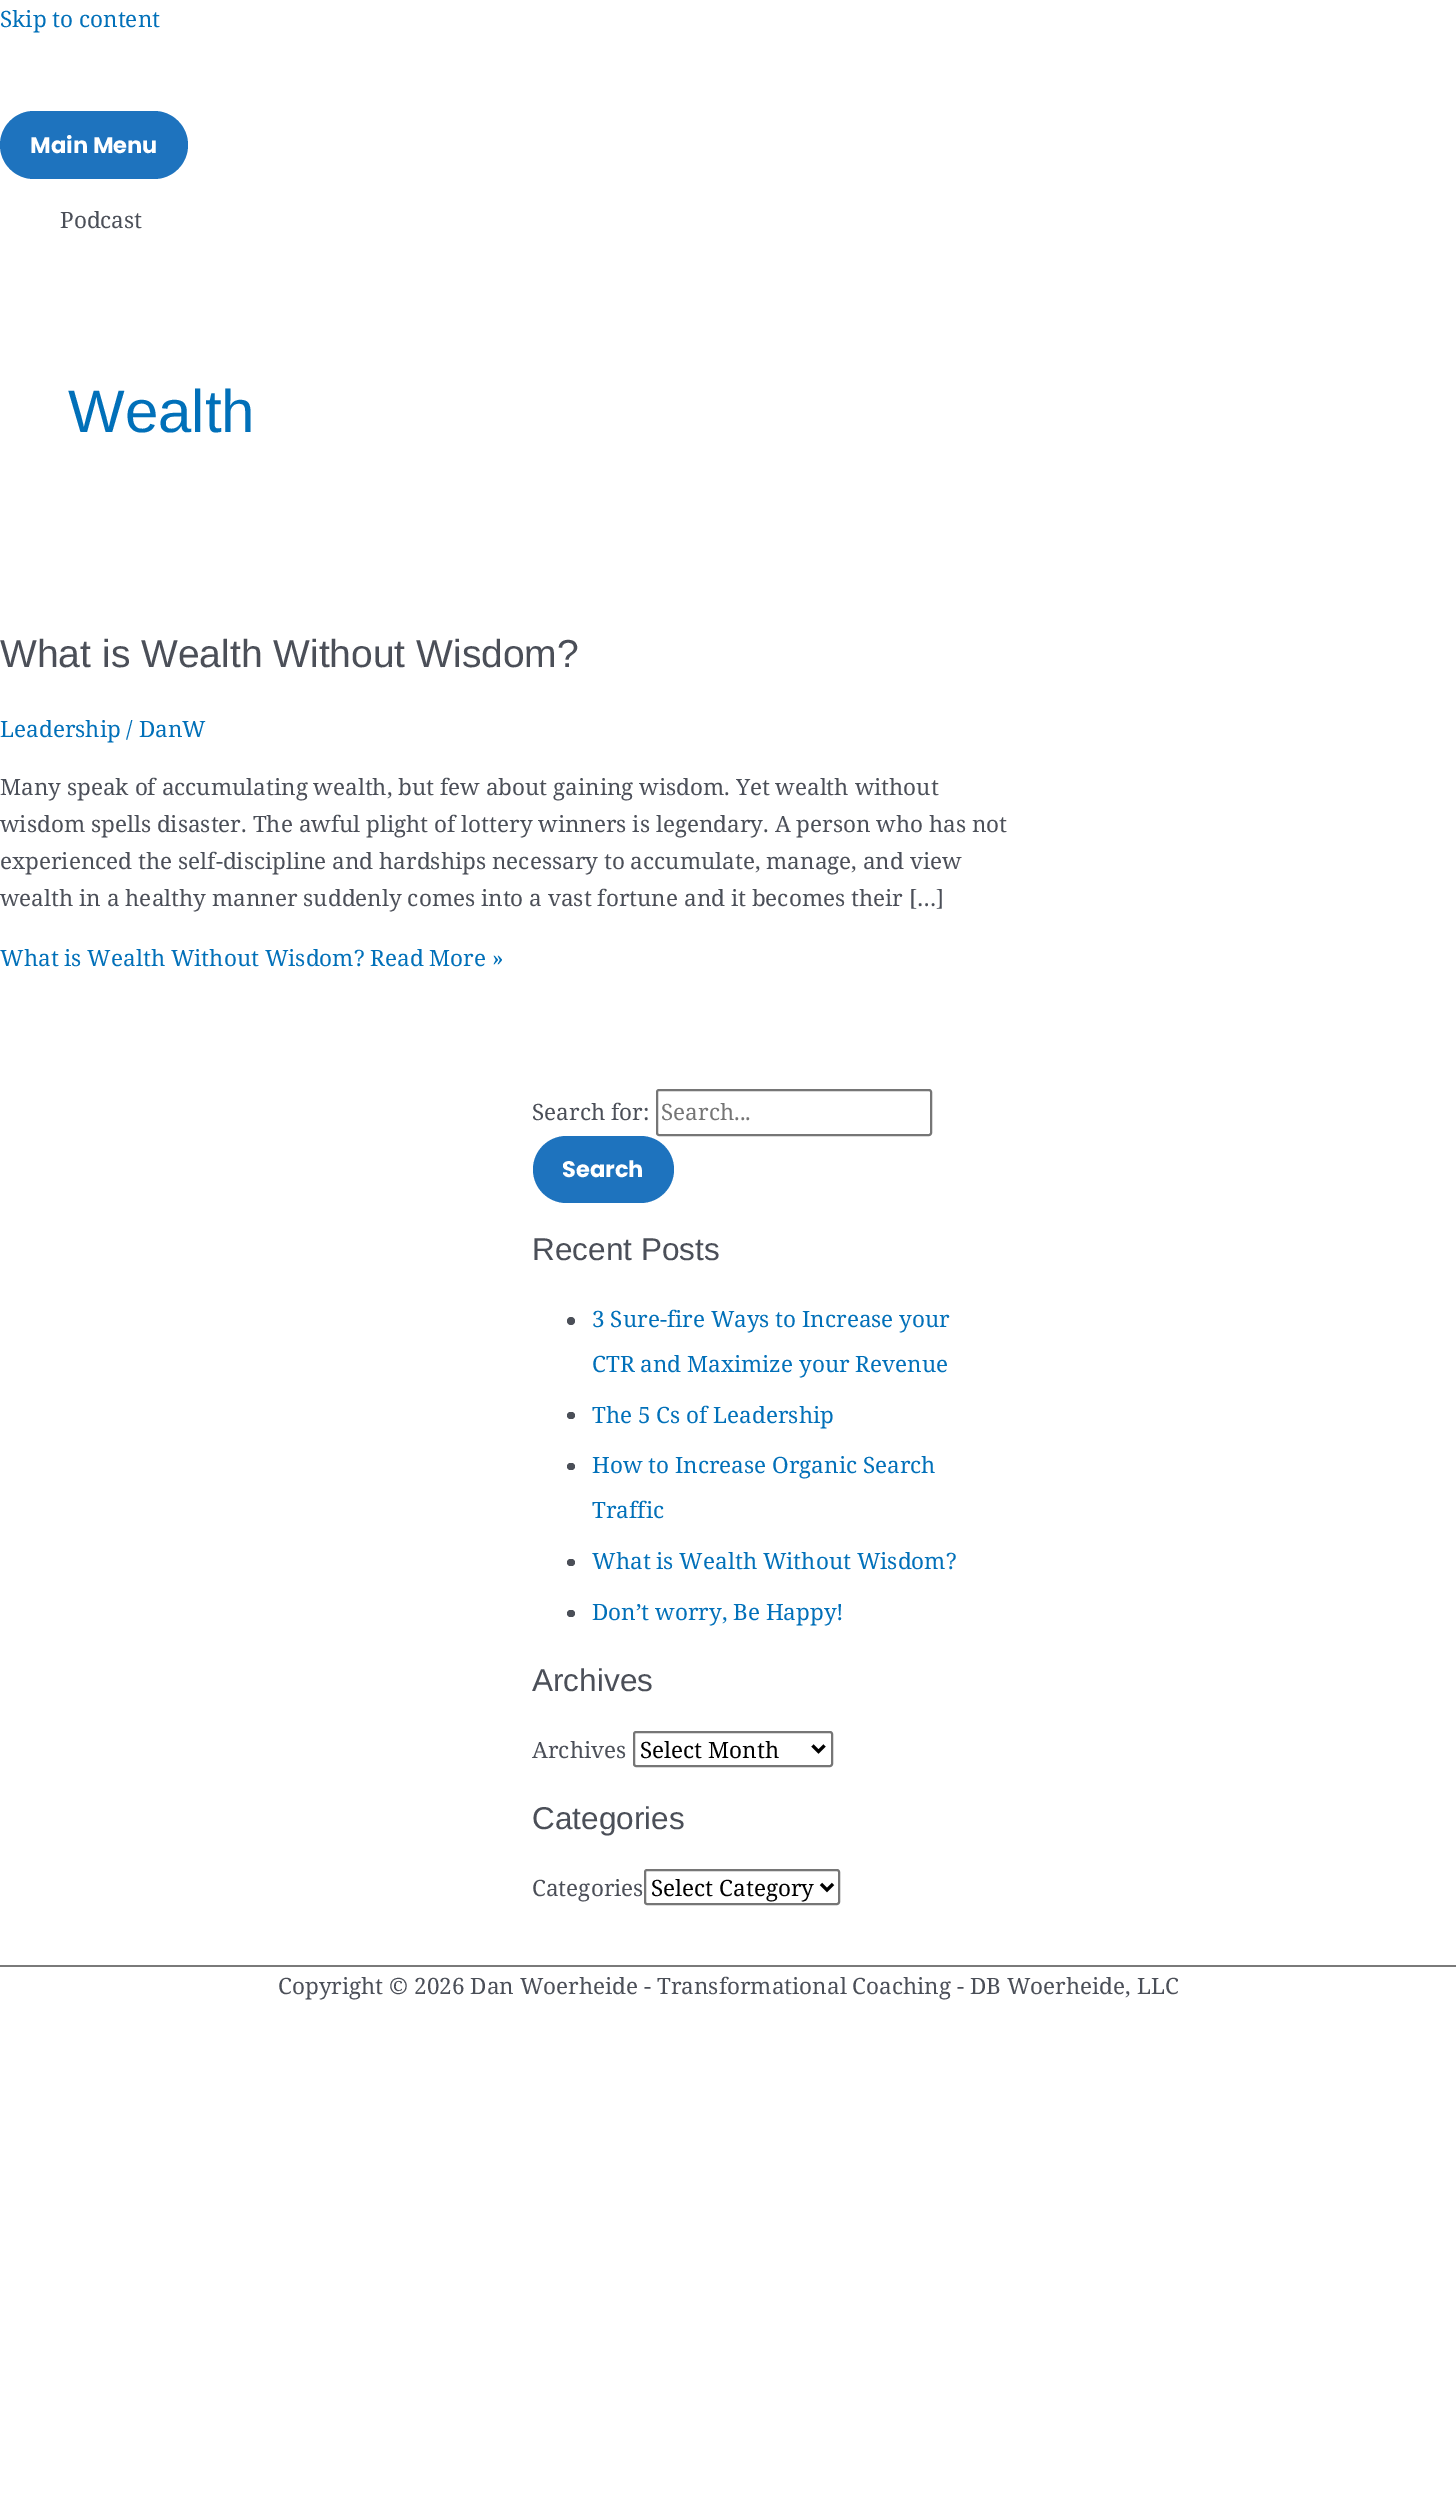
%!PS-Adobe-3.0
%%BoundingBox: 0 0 1456 2494
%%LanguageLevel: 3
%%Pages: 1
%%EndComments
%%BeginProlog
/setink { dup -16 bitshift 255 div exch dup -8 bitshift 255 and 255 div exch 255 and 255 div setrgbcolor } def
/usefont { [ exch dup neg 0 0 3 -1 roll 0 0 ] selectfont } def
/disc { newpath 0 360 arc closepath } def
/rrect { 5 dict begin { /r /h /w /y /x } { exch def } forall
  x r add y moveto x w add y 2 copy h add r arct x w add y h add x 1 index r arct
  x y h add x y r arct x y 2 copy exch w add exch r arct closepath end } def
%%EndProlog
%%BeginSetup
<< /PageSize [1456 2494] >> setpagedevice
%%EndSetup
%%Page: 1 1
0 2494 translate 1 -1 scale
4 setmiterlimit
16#FFFFFF setink
0 0 1456 2494 rectfill
/NotoSerif-Regular 22.5 usefont
16#0170B9 setink
0 27 moveto (Skip to content) show
16#1E73BE setink
0 111 188 68 34 rrect fill
/Poppins-Bold 22.5 usefont
16#FFFFFF setink
30 153 moveto (Main Menu) show
/NotoSerif-Regular 22.5 usefont
16#4B4F58 setink
60 228 moveto (Podcast) show
/LiberationSans-Regular 60 usefont
16#0170B9 setink
68 432 moveto (Wealth) show
/LiberationSans-Regular 39 usefont
16#4B4F58 setink
0 667 moveto (What is Wealth Without Wisdom?) show
/NotoSerif-Regular 22.5 usefont
16#0170B9 setink
0 737 moveto (Leadership / DanW) show
16#4B4F58 setink
[
    [(Many speak of accumulating wealth, but few about gaining wisdom. Yet wealth without) 0 795]
    [(wisdom spells disaster. The awful plight of lottery winners is legendary. A person who has not) 0 832]
    [(experienced the self-discipline and hardships necessary to accumulate, manage, and view) 0 869]
    [(wealth in a healthy manner suddenly comes into a vast fortune and it becomes their […]) 0 906]
] { aload pop moveto show } forall
16#0170B9 setink
0 966 moveto (What is Wealth Without Wisdom? Read More ») show
16#4B4F58 setink
532 1120 moveto (Search for:) show
16#767676 setink
2 setlinewidth
657 1090 274 45 2 rrect stroke
16#757575 setink
661 1120 moveto (Search...) show
16#1E73BE setink
533 1136 141 67 33.5 rrect fill
/Poppins-Bold 22.5 usefont
16#FFFFFF setink
562 1177 moveto (Search) show
/LiberationSans-Regular 31.5 usefont
16#4B4F58 setink
532 1260 moveto (Recent Posts) show
571 1321 4 disc fill
/NotoSerif-Regular 22.5 usefont
16#0170B9 setink
592 1327 moveto (3 Sure-fire Ways to Increase your) show
592 1372 moveto (CTR and Maximize your Revenue) show
16#4B4F58 setink
567 1412 8 7 3.5 rrect fill
16#0170B9 setink
592 1423 moveto (The 5 Cs of Leadership) show
16#4B4F58 setink
567 1463 8 7 3.5 rrect fill
16#0170B9 setink
592 1473 moveto (How to Increase Organic Search) show
592 1518 moveto (Traffic) show
16#4B4F58 setink
567 1559 8 7 3.5 rrect fill
16#0170B9 setink
592 1569 moveto (What is Wealth Without Wisdom?) show
16#4B4F58 setink
567 1610 8 7 3.5 rrect fill
16#0170B9 setink
592 1620 moveto (Don’t worry, Be Happy!) show
/LiberationSans-Regular 31.5 usefont
16#4B4F58 setink
532 1691 moveto (Archives) show
/NotoSerif-Regular 22.5 usefont
532 1758 moveto (Archives) show
16#767676 setink
634 1732 198 34 2 rrect stroke
16#000000 setink
3 setlinewidth
812.5 1745.5 moveto 818.5 1751.5 lineto 824.5 1745.5 lineto stroke
640 1758 moveto (Select Month) show
/LiberationSans-Regular 31.5 usefont
16#4B4F58 setink
532 1829 moveto (Categories) show
/NotoSerif-Regular 22.5 usefont
532 1896 moveto (Categories) show
16#767676 setink
2 setlinewidth
645 1870 194 34 2 rrect stroke
16#000000 setink
3 setlinewidth
821 1884 moveto 827 1890 lineto 833 1884 lineto stroke
651 1896 moveto (Select Category) show
16#7A7A7A setink
0 1965 1456 2 rectfill
16#4B4F58 setink
278 1994 moveto (Copyright © 2026 Dan Woerheide - Transformational Coaching - DB Woerheide, LLC) show
showpage
%%EOF
